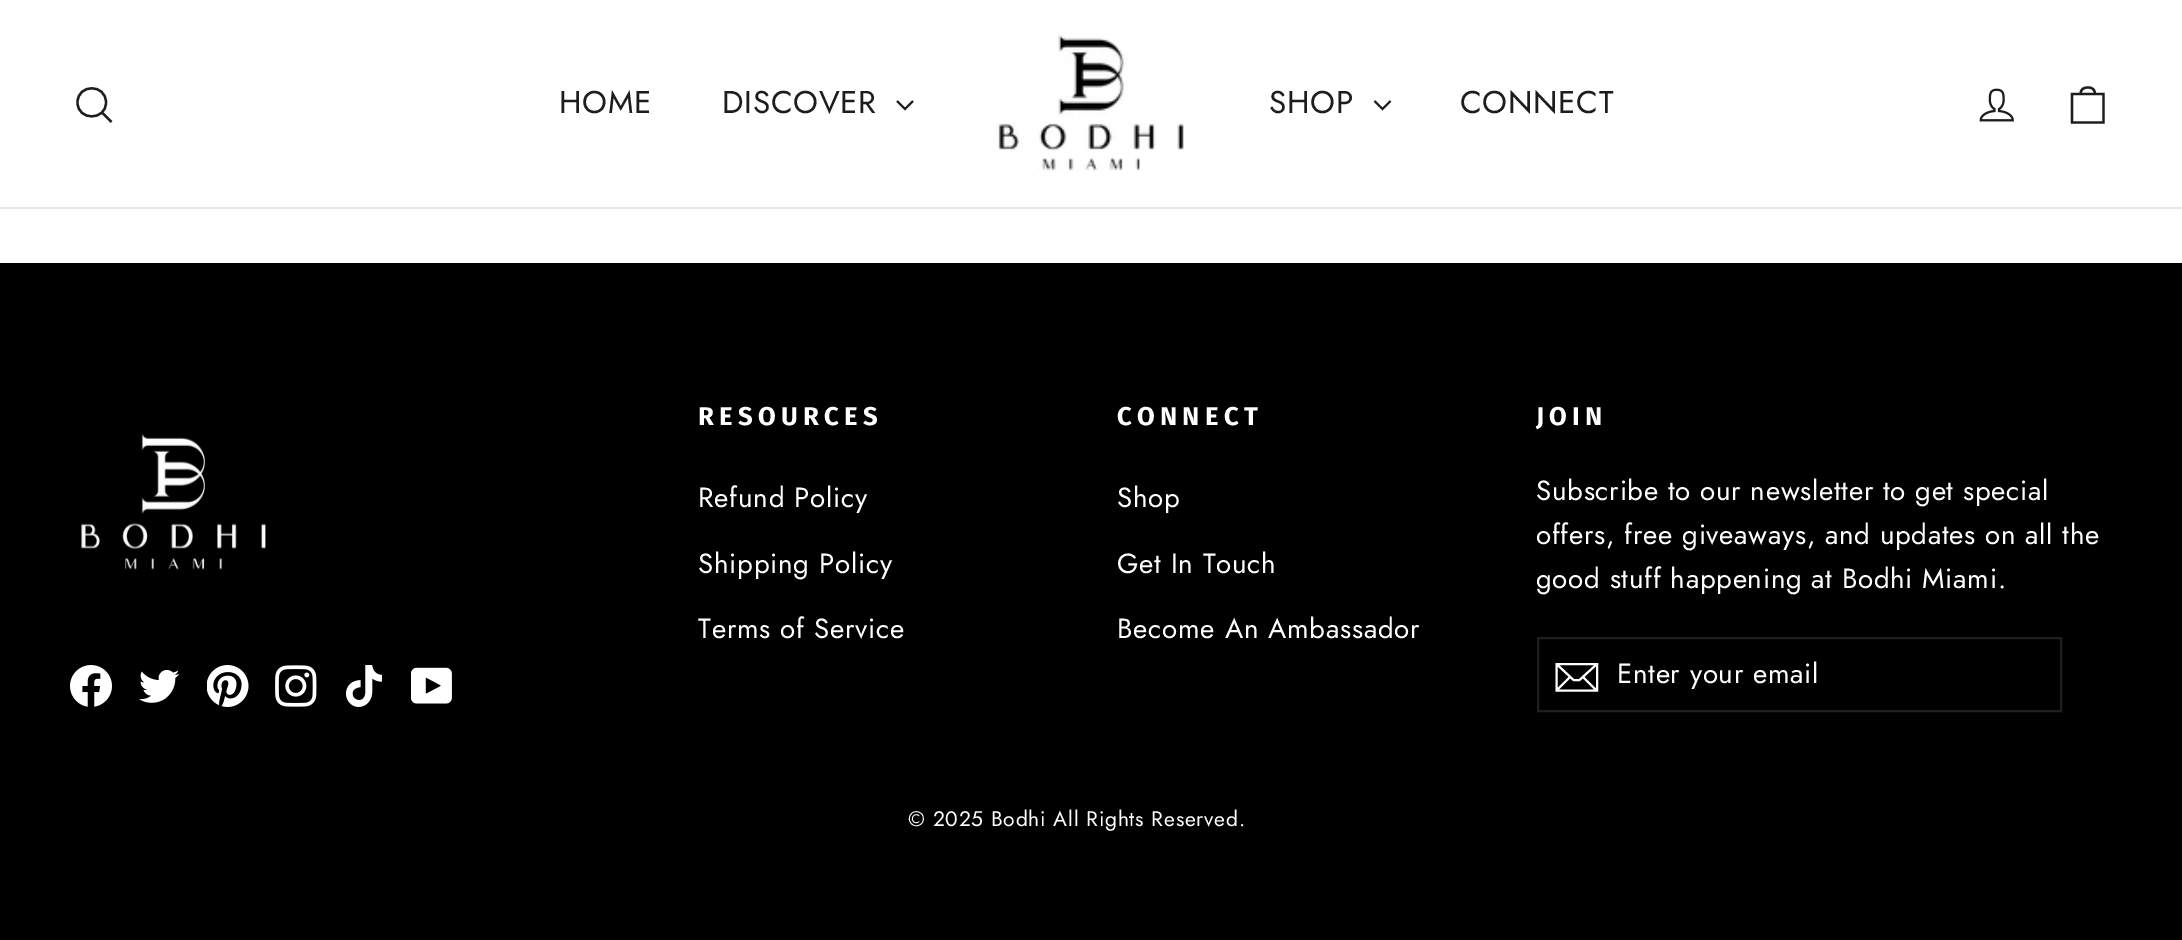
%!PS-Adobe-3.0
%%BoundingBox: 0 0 2182 940
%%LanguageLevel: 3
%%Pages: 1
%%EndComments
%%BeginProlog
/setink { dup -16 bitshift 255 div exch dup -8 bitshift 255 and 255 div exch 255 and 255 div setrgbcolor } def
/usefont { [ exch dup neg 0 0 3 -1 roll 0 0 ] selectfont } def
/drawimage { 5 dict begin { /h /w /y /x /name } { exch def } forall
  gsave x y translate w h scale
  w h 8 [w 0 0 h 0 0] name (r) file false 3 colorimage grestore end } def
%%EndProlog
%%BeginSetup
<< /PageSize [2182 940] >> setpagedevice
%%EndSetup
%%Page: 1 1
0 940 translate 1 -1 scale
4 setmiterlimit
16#FFFFFF setink
0 0 2182 940 rectfill
16#E8E8E1 setink
0 207 2182 2 rectfill
16#1C1D1D setink
2.3 setlinewidth
106 102.5 moveto 106 121 77.5 121 77.5 102.5 curveto 77.5 83.5 106 83.5 106 102.5 curveto closepath 111.5 122 moveto 102 112.5 lineto stroke
/Jost-Regular 31.5 usefont
559 113 moveto 0.75 0 (HOME) ashow
722 113 moveto 0.75 0 (DISCOVER) ashow
1.9 setlinewidth
897 101 moveto 905 109 lineto 913 101 lineto stroke
(img1.raw) 996 34 188 137 drawimage
1269 113 moveto 0.75 0 (SHOP) ashow
1374.5 101 moveto 1382.5 109 lineto 1390.5 101 lineto stroke
1460 113 moveto 0.75 0 (CONNECT) ashow
(img2.raw) 1979 88 35 34 drawimage
2.3 setlinewidth
2072 94 moveto 2103.5 94 lineto 2103.5 122.5 lineto 2072 122.5 lineto closepath 2080.5 94.5 moveto 2080.5 89 2083.5 87.5 2088 87.5 curveto 2092 87.5 2095 89 2095 94.5 curveto stroke
16#000000 setink
0 263 2182 677 rectfill
(img3.raw) 81 433 185 137 drawimage
(img4.raw) 70 665 42 42 drawimage
(img5.raw) 139 670 40 33 drawimage
(img6.raw) 207 665 42 42 drawimage
(img7.raw) 275 665 42 42 drawimage
(img8.raw) 346 665 36 42 drawimage
(img9.raw) 411 667 41 37 drawimage
/FiraSans-Bold 25.75 usefont
16#FFFFFF setink
698 425 moveto 5.25 0 (RESOURCES) ashow
/Jost-Regular 27.7 usefont
698 507 moveto 0.75 0 (Refund Policy) ashow
698 573 moveto 0.75 0 (Shipping Policy) ashow
698 638 moveto 0.75 0 (Terms of Service) ashow
/FiraSans-Bold 25.75 usefont
1117 425 moveto 5.25 0 (CONNECT) ashow
/Jost-Regular 27.7 usefont
1117 507 moveto 0.75 0 (Shop) ashow
1117 573 moveto 0.75 0 (Get In Touch) ashow
1117 638 moveto 0.75 0 (Become An Ambassador) ashow
/FiraSans-Bold 25.75 usefont
1536 425 moveto 5.25 0 (JOIN) ashow
/Jost-Regular 27.7 usefont
1536 500 moveto 0.7 0 (Subscribe to our newsletter to get special) ashow
1536 544 moveto 0.7 0 (offers, free giveaways, and updates on all the) ashow
1536 588 moveto 0.7 0 (good stuff happening at Bodhi Miami.) ashow
16#1F1F1F setink
2 setlinewidth
1538 638 523 73 rectstroke
16#FFFFFF setink
1597 690.5 moveto 1556.5 690.5 lineto 1556.5 664 lineto 1597 664 lineto closepath 1556.5 664 moveto 1573.5 680 lineto 1579.5 680 lineto 1597 664 lineto 1570 677 moveto 1557 690 lineto 1596.5 690.5 moveto 1583 677 lineto stroke
1617 683 moveto 0.7 0 (Enter your email) ashow
/Jost-Regular 21 usefont
908 826 moveto 0.75 0 (© 2025 Bodhi All Rights Reserved.) ashow
showpage
%%EOF
